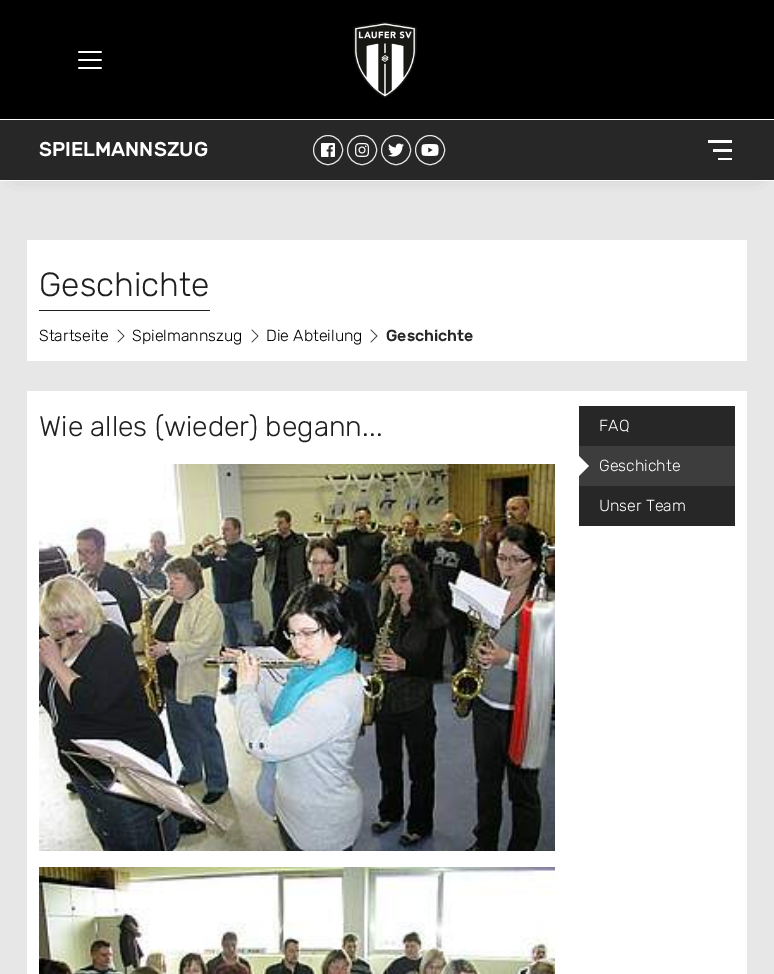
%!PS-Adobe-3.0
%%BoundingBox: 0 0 774 974
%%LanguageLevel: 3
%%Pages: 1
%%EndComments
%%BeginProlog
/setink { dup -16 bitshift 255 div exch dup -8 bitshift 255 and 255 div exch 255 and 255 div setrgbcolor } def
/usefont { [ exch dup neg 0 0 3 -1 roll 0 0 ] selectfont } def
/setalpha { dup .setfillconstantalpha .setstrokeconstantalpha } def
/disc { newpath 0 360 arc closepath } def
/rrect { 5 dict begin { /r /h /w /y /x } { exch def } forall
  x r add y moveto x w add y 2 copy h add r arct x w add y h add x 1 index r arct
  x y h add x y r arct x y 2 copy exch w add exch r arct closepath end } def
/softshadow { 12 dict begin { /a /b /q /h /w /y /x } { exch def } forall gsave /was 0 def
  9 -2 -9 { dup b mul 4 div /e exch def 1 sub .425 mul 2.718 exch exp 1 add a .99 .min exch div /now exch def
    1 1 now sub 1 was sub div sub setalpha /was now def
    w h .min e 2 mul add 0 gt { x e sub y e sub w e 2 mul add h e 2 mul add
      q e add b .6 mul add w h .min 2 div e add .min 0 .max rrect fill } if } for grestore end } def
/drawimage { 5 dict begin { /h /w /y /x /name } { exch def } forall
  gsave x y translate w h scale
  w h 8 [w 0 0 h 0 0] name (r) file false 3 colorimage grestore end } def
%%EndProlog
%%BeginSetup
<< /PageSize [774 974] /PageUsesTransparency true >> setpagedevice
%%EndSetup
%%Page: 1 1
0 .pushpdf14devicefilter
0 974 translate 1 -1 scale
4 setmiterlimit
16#E7E7E7 setink
0 0 774 974 rectfill
16#000000 setink
0 0 774 119 rectfill
16#FFFFFF setink
0 119 774 1 rectfill
(img1.raw) 78 51 24 18 drawimage
(img2.raw) 353 22 64 76 drawimage
16#000000 setink
17 142 740 27 0 10 0.34 softshadow
16#272727 setink
0 120 774 60 rectfill
16#FFFFFF setink
0 180 774 1 rectfill
/Rubik-Medium 20 usefont
39 156 moveto (SPIELMANNSZUG) show
16#E6E6E6 setink
328 150 14.5 disc stroke
(img3.raw) 321 143 14 14 drawimage
362 150 14.5 disc stroke
(img4.raw) 355 143 15 14 drawimage
396 150 14.5 disc stroke
(img5.raw) 388 143 16 14 drawimage
430 150 14.5 disc stroke
(img6.raw) 421 144 18 12 drawimage
[
    [708 140 24 3 16#FCFDFC]
    [713 149 19 3 16#F8F9F8]
    [718 158 14 2 16#FCFDFC]
    [27 240 720 121 16#FFFFFF]
    [39 310 171 1 16#1F1F1F]
] { aload pop setink rectfill } forall
/Rubik-Light 33.5 usefont
39 296 moveto (Geschichte) show
/Rubik-Light 16 usefont
16#000000 setink
39 341 moveto (Startseite) show
(img7.raw) 117 329 8 14 drawimage
132 341 moveto (Spielmannszug) show
(img7.raw) 251 329 8 14 drawimage
266 341 moveto (Die Abteilung) show
(img7.raw) 370 329 8 14 drawimage
/Rubik-Medium 16 usefont
16#272727 setink
386 341 moveto (Geschichte) show
16#FFFFFF setink
27 391 720 583 rectfill
/Rubik-Light 28.25 usefont
16#1F1F1F setink
39 436 moveto (Wie alles \(wieder\) begann...) show
(img8.raw) 39 464 516 387 drawimage
(img9.raw) 39 867 516 107 drawimage
16#272727 setink
579 406 156 120 rectfill
/Rubik-Light 16 usefont
16#FFFFFF setink
599 431 moveto (FAQ) show
16#3D3D3D setink
579 446 156 40 rectfill
16#FFFFFF setink
579 476 moveto 579 456 lineto 589 466 lineto closepath fill
599 471 moveto (Geschichte) show
599 511 moveto (Unser Team) show
.poppdf14devicefilter showpage
%%EOF
